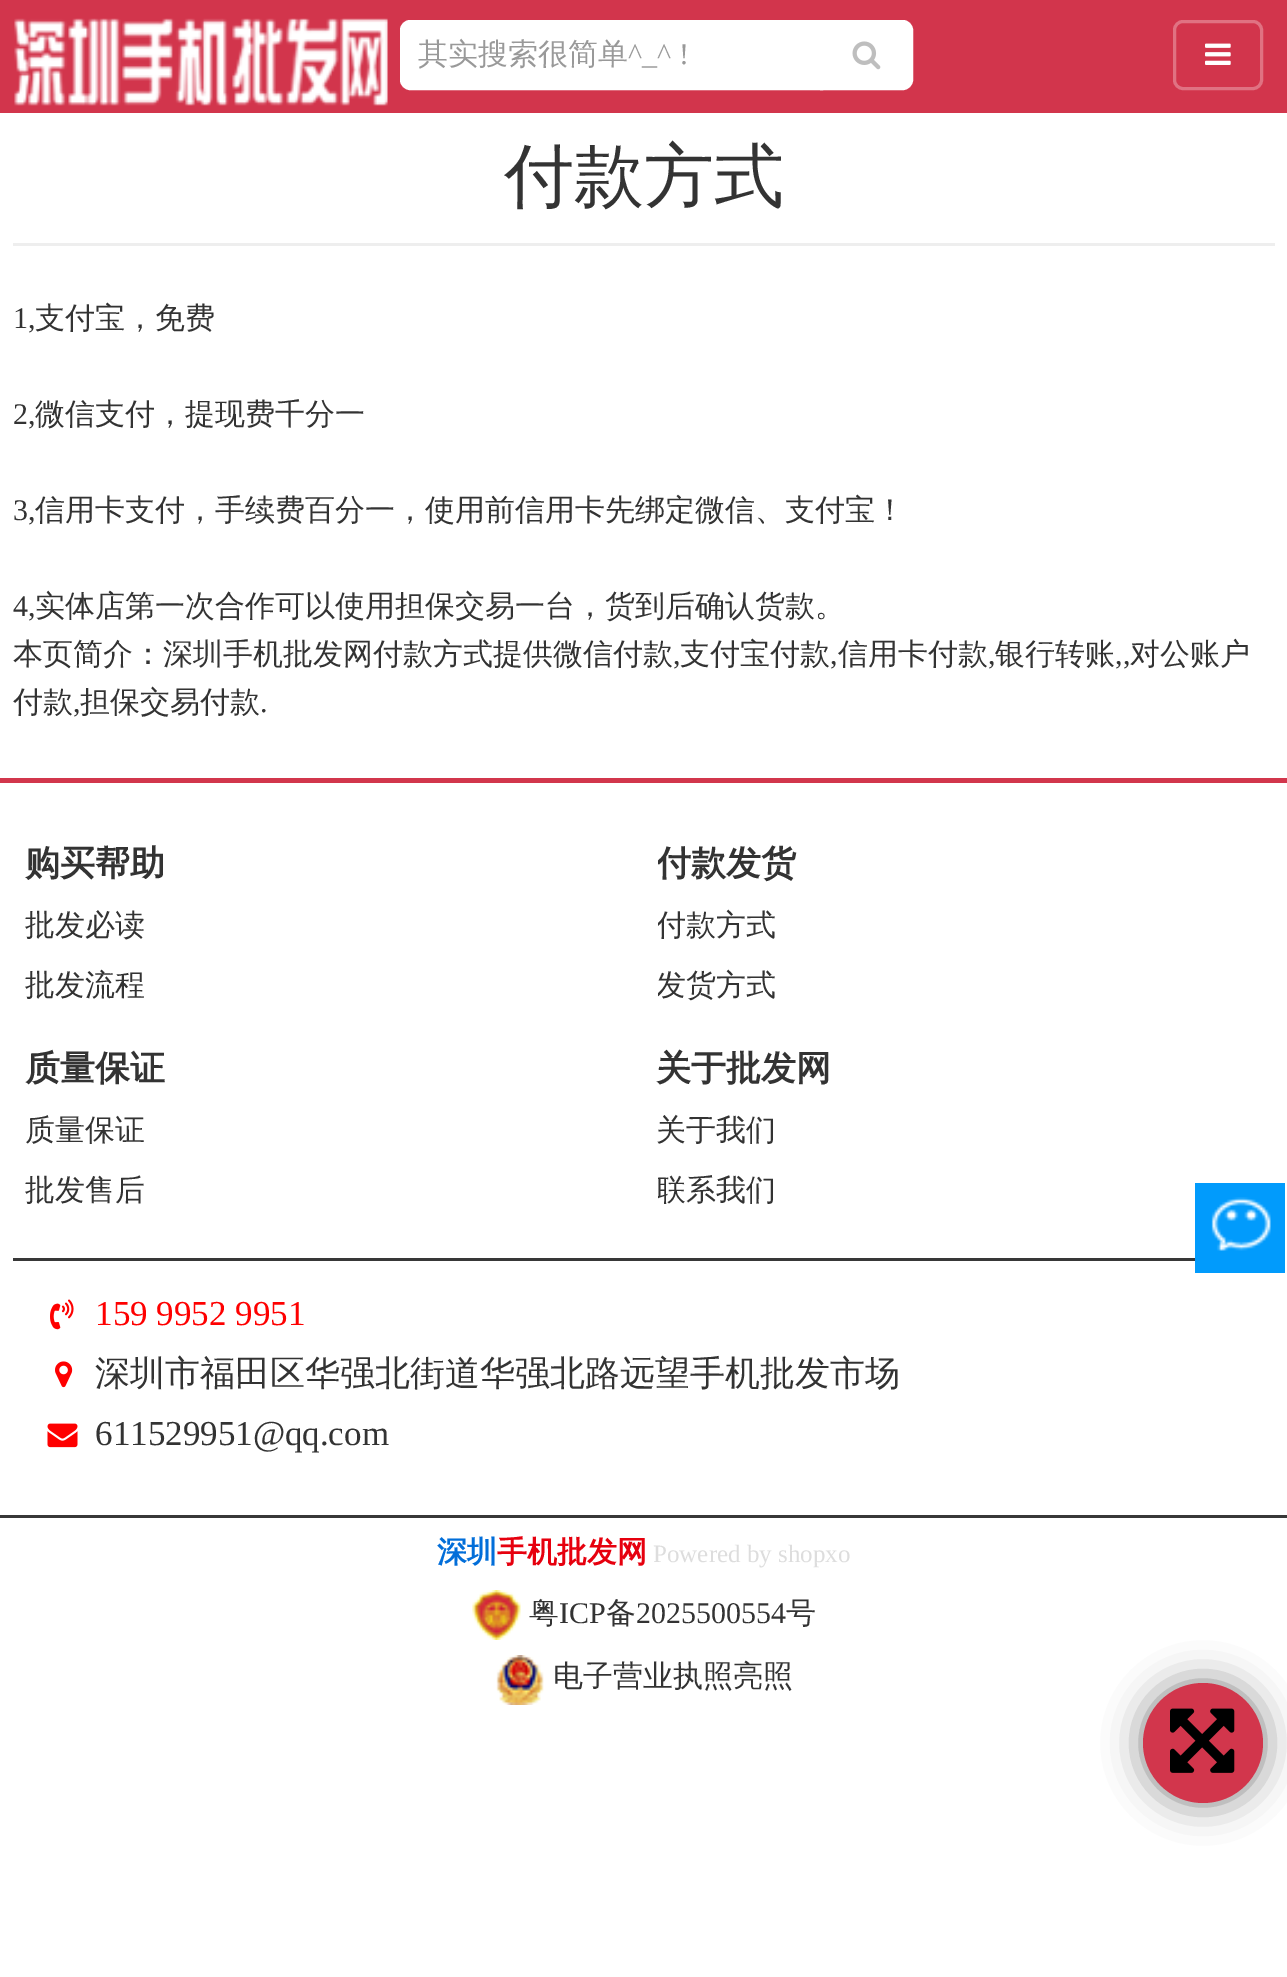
%!PS-Adobe-3.0
%%BoundingBox: 0 0 1287 1977
%%LanguageLevel: 3
%%Pages: 1
%%EndComments
%%BeginProlog
/setink { dup -16 bitshift 255 div exch dup -8 bitshift 255 and 255 div exch 255 and 255 div setrgbcolor } def
/usefont { [ exch dup neg 0 0 3 -1 roll 0 0 ] selectfont } def
/setalpha { dup .setfillconstantalpha .setstrokeconstantalpha } def
/disc { newpath 0 360 arc closepath } def
/rrect { 5 dict begin { /r /h /w /y /x } { exch def } forall
  x r add y moveto x w add y 2 copy h add r arct x w add y h add x 1 index r arct
  x y h add x y r arct x y 2 copy exch w add exch r arct closepath end } def
/softshadow { 12 dict begin { /a /b /q /h /w /y /x } { exch def } forall gsave /was 0 def
  9 -2 -9 { dup b mul 4 div /e exch def 1 sub .425 mul 2.718 exch exp 1 add a .99 .min exch div /now exch def
    1 1 now sub 1 was sub div sub setalpha /was now def
    w h .min e 2 mul add 0 gt { x e sub y e sub w e 2 mul add h e 2 mul add
      q e add b .6 mul add w h .min 2 div e add .min 0 .max rrect fill } if } for grestore end } def
/drawimage { 5 dict begin { /h /w /y /x /name } { exch def } forall
  gsave x y translate w h scale
  w h 8 [w 0 0 h 0 0] name (r) file false 3 colorimage grestore end } def
%%EndProlog
%%BeginSetup
<< /PageSize [1287 1977] /PageUsesTransparency true >> setpagedevice
%%EndSetup
%%Page: 1 1
0 .pushpdf14devicefilter
0 1977 translate 1 -1 scale
4 setmiterlimit
16#FFFFFF setink
0 0 1287 1977 rectfill
16#D2354C setink
0 0 1287 113 rectfill
(img1.raw) 14 18 374 88 drawimage
16#FFFFFF setink
821.5 21.5 moveto 903 21.5 lineto 907.5 21.5 911.5 25.5 911.5 30 curveto 911.5 80 lineto 911.5 84.5 907.5 88.5 903 88.5 curveto 821.5 88.5 lineto closepath gsave fill grestore
3 setlinewidth
stroke
410 21.5 moveto 821.5 21.5 lineto 821.5 88.5 lineto 410 88.5 lineto 405.5 88.5 401.5 84.5 401.5 80 curveto 401.5 30 lineto 401.5 25.5 405.5 21.5 410 21.5 curveto closepath gsave fill grestore
stroke
/WenQuanYiZenHei-Medium 30 usefont
16#999999 setink
418 64 moveto (其实搜索很简单) show
/LiberationSerif-Regular 30 usefont
628 64 moveto (^_^ !) show
(img2.raw) 852 41 29 29 drawimage
16#E07282 setink
1174.5 21.5 87 67 8.5 rrect stroke
(img3.raw) 1205 43 26 22 drawimage
/WenQuanYiZenHei-Medium 70 usefont
16#333333 setink
504 200 moveto (付款方式) show
16#EEEEEE setink
13 243 1262 3 rectfill
/LiberationSerif-Regular 30 usefont
16#333333 setink
13 328 moveto (1,) show
/WenQuanYiZenHei-Medium 30 usefont
35 328 moveto (支付宝，免费) show
/LiberationSerif-Regular 30 usefont
13 424 moveto (2,) show
/WenQuanYiZenHei-Medium 30 usefont
35 424 moveto (微信支付，提现费千分一) show
/LiberationSerif-Regular 30 usefont
13 520 moveto (3,) show
/WenQuanYiZenHei-Medium 30 usefont
35 520 moveto (信用卡支付，手续费百分一，使用前信用卡先绑定微信、支付宝！) show
/LiberationSerif-Regular 30 usefont
13 616 moveto (4,) show
/WenQuanYiZenHei-Medium 30 usefont
35 616 moveto (实体店第一次合作可以使用担保交易一台，货到后确认货款。) show
13 664 moveto (本页简介：深圳手机批发网付款方式提供微信付款) show
/LiberationSerif-Regular 30 usefont
673 664 moveto (,) show
/WenQuanYiZenHei-Medium 30 usefont
680 664 moveto (支付宝付款) show
/LiberationSerif-Regular 30 usefont
830 664 moveto (,) show
/WenQuanYiZenHei-Medium 30 usefont
838 664 moveto (信用卡付款) show
/LiberationSerif-Regular 30 usefont
988 664 moveto (,) show
/WenQuanYiZenHei-Medium 30 usefont
995 664 moveto (银行转账) show
/LiberationSerif-Regular 30 usefont
1115 664 moveto (,,) show
/WenQuanYiZenHei-Medium 30 usefont
1130 664 moveto (对公账户) show
13 712 moveto (付款) show
/LiberationSerif-Regular 30 usefont
73 712 moveto (,) show
/WenQuanYiZenHei-Medium 30 usefont
80 712 moveto (担保交易付款) show
/LiberationSerif-Regular 30 usefont
260 712 moveto (.) show
16#000000 setink
1143 1683 120 120 60 19 0.5 softshadow
16#D2364C setink
1203 1743 60 disc fill
(img4.raw) 1170 1708 65 65 drawimage
0 778 1287 5 rectfill
/WenQuanYiZenHei-Bold 35 usefont
16#333333 setink
25 875 moveto (购买帮助) show
/WenQuanYiZenHei-Medium 30 usefont
25 935 moveto (批发必读) show
25 995 moveto (批发流程) show
gsave
658 835 605 60 rectclip
/WenQuanYiZenHei-Bold 35 usefont
656 875 moveto (付款发货) show
grestore
gsave
658 895 605 60 rectclip
656 935 moveto (付款方式) show
grestore
gsave
658 955 605 60 rectclip
656 995 moveto (发货方式) show
grestore
/WenQuanYiZenHei-Bold 35 usefont
25 1080 moveto (质量保证) show
/WenQuanYiZenHei-Medium 30 usefont
25 1140 moveto (质量保证) show
25 1200 moveto (批发售后) show
/WenQuanYiZenHei-Bold 35 usefont
656 1080 moveto (关于批发网) show
/WenQuanYiZenHei-Medium 30 usefont
656 1140 moveto (关于我们) show
gsave
658 1160 605 60 rectclip
656 1200 moveto (联系我们) show
grestore
16#383838 setink
13 1258 1182 3 rectfill
(img5.raw) 50 1299 24 31 drawimage
/LiberationSerif-Regular 35 usefont
16#FE0000 setink
95 1325 moveto (159 9952 9951) show
(img6.raw) 55 1361 18 27 drawimage
/WenQuanYiZenHei-Medium 35 usefont
16#333333 setink
95 1385 moveto (深圳市福田区华强北街道华强北路远望手机批发市场) show
(img7.raw) 47 1423 31 25 drawimage
/LiberationSerif-Regular 35 usefont
95 1445 moveto (611529951@qq.com) show
16#019BFC setink
1195 1183 90 90 rectfill
(img8.raw) 1211 1197 60 54 drawimage
16#383838 setink
0 1515 1287 3 rectfill
/WenQuanYiZenHei-Bold 30 usefont
16#026ED9 setink
437 1562 moveto (深圳) show
16#E6000E setink
497 1562 moveto (手机批发网) show
/LiberationSerif-Regular 25 usefont
16#DDDDDD setink
653 1562 moveto (Powered by shopxo) show
(img9.raw) 472 1590 49 50 drawimage
/WenQuanYiZenHei-Medium 30 usefont
16#333333 setink
529 1623 moveto (粤) show
/LiberationSerif-Regular 30 usefont
559 1623 moveto (ICP) show
/WenQuanYiZenHei-Medium 30 usefont
606 1623 moveto (备) show
/LiberationSerif-Regular 30 usefont
636 1623 moveto (2025500554) show
/WenQuanYiZenHei-Medium 30 usefont
786 1623 moveto (号) show
(img10.raw) 496 1655 48 50 drawimage
553 1686 moveto (电子营业执照亮照) show
.poppdf14devicefilter showpage
%%EOF
